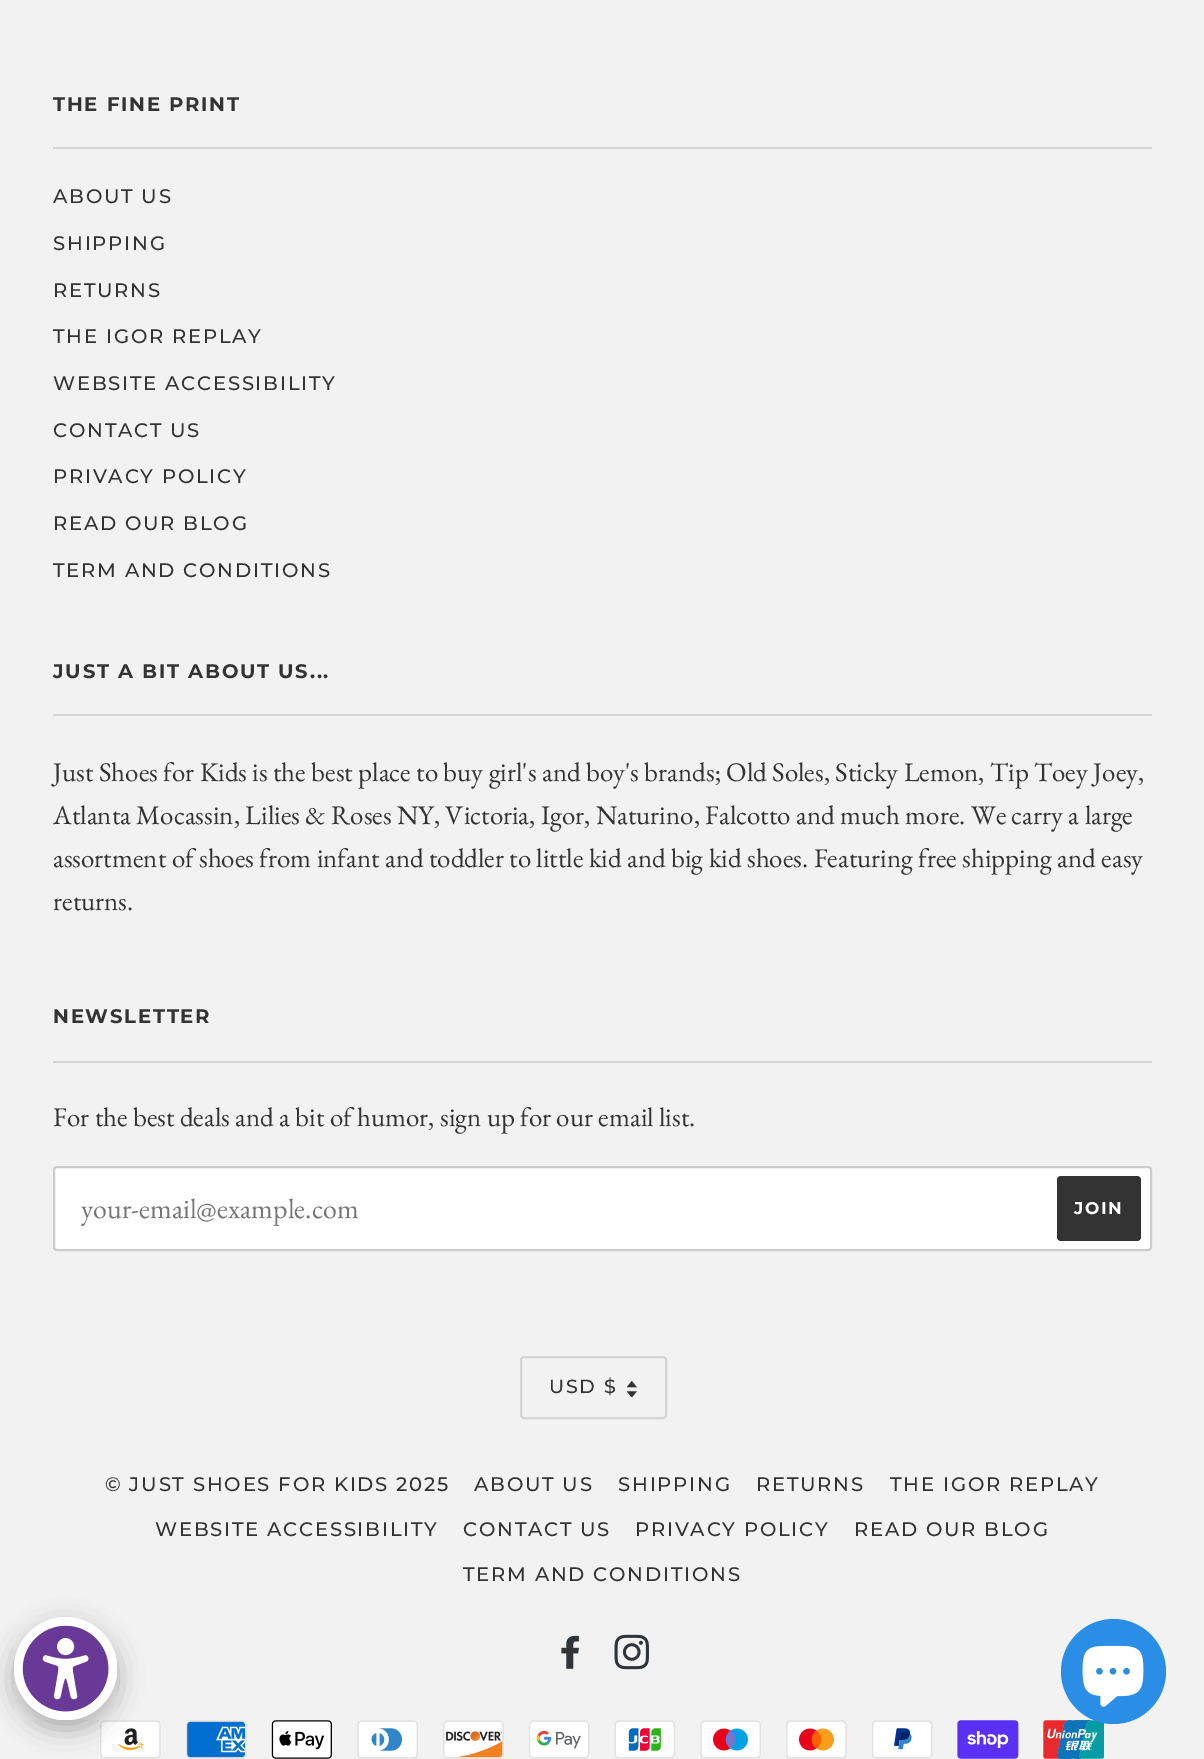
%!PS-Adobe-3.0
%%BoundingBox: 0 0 1204 1759
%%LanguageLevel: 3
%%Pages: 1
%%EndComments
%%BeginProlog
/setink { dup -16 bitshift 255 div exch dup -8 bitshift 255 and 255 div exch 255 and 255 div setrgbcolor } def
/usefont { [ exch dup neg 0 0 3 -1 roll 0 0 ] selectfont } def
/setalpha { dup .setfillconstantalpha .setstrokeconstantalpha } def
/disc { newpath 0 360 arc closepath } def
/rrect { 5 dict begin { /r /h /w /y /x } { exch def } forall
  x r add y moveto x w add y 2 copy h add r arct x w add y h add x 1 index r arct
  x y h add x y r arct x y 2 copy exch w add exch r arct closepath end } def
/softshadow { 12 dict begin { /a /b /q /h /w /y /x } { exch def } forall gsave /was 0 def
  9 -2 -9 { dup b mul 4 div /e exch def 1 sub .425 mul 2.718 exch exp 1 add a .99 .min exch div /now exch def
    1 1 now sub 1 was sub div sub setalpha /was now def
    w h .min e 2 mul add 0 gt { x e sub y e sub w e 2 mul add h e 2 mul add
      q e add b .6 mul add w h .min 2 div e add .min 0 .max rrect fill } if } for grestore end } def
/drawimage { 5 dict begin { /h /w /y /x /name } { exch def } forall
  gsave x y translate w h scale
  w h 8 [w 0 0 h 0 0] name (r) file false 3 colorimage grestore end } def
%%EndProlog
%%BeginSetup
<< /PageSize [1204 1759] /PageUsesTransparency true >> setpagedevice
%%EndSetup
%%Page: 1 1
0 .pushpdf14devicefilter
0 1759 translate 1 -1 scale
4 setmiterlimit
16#F2F2F2 setink
0 0 1204 1759 rectfill
/Montserrat-Bold 19.6 usefont
16#333333 setink
53 111 moveto 1.75 0 (THE FINE PRINT) ashow
16#D5D5D5 setink
53 147 1099 2 rectfill
/Montserrat-Medium 19.6 usefont
16#333333 setink
53 203 moveto 1.75 0 (ABOUT US) ashow
53 250 moveto 1.75 0 (SHIPPING) ashow
53 297 moveto 1.75 0 (RETURNS) ashow
53 343 moveto 1.75 0 (THE IGOR REPLAY) ashow
53 390 moveto 1.75 0 (WEBSITE ACCESSIBILITY) ashow
53 437 moveto 1.75 0 (CONTACT US) ashow
53 483 moveto 1.75 0 (PRIVACY POLICY) ashow
53 530 moveto 1.75 0 (READ OUR BLOG) ashow
53 577 moveto 1.75 0 (TERM AND CONDITIONS) ashow
/Montserrat-Bold 19.6 usefont
53 678 moveto 1.75 0 (JUST A BIT ABOUT US...) ashow
16#D5D5D5 setink
53 714 1099 2 rectfill
/EBGaramond-Regular 26.95 usefont
16#333333 setink
[
    [(Just Shoes for Kids is the best place to buy girl's and boy's brands; Old Soles, Sticky Lemon, Tip Toey Joey,) 53 781]
    [(Atlanta Mocassin, Lilies & Roses NY, Victoria, Igor, Naturino, Falcotto and much more. We carry a large) 53 824]
    [(assortment of shoes from infant and toddler to little kid and big kid shoes. Featuring free shipping and easy) 53 867]
    [(returns.) 53 910]
] { aload pop moveto show } forall
/Montserrat-Bold 19.6 usefont
53 1023 moveto 1.75 0 (NEWSLETTER) ashow
16#D5D5D5 setink
53 1061 1099 2 rectfill
/EBGaramond-Regular 26.95 usefont
16#333333 setink
53 1126 moveto (For the best deals and a bit of humor, sign up for our email list.) show
16#FFFFFF setink
54 1167 1097 83 3 rrect gsave fill grestore
16#CCCCCC setink
2 setlinewidth
stroke
/EBGaramond-Regular 28 usefont
16#757575 setink
81 1218 moveto (your-email@example.com) show
16#333333 setink
1057 1176 84 65 4 rrect fill
/Montserrat-Bold 17 usefont
16#FFFFFF setink
1074 1214 moveto 1.75 0 (JOIN) ashow
16#D5D5D5 setink
521 1357 145 61 3 rrect stroke
/Montserrat-Medium 19 usefont
16#333333 setink
549 1393 moveto 1.75 0 (USD $) ashow
(img1.raw) 627 1381 10 16 drawimage
/Montserrat-Medium 19.6 usefont
105 1491 moveto 1.75 0 (© JUST SHOES FOR KIDS 2025) ashow
474 1491 moveto 1.75 0 (ABOUT US) ashow
618 1491 moveto 1.75 0 (SHIPPING) ashow
756 1491 moveto 1.75 0 (RETURNS) ashow
890 1491 moveto 1.75 0 (THE IGOR REPLAY) ashow
155 1536 moveto 1.75 0 (WEBSITE ACCESSIBILITY) ashow
463 1536 moveto 1.75 0 (CONTACT US) ashow
635 1536 moveto 1.75 0 (PRIVACY POLICY) ashow
854 1536 moveto 1.75 0 (READ OUR BLOG) ashow
463 1581 moveto 1.75 0 (TERM AND CONDITIONS) ashow
(img2.raw) 561 1635 18 34 drawimage
(img3.raw) 614 1634 35 36 drawimage
(img4.raw) 100 1720 61 39 drawimage
(img5.raw) 186 1720 61 39 drawimage
(img6.raw) 271 1720 61 39 drawimage
(img7.raw) 357 1720 61 39 drawimage
(img8.raw) 443 1720 61 39 drawimage
(img9.raw) 529 1720 61 39 drawimage
(img10.raw) 614 1720 62 39 drawimage
(img11.raw) 700 1720 61 39 drawimage
(img12.raw) 786 1720 61 39 drawimage
(img13.raw) 872 1720 61 39 drawimage
(img14.raw) 957 1720 62 39 drawimage
(img15.raw) 1043 1720 61 39 drawimage
16#2A8EE7 setink
1113.5 1671.5 52.5 disc fill
(img16.raw) 1082 1645 62 62 drawimage
16#000000 setink
14 1626 103 103 51.5 13 0.3 softshadow
(img17.raw) 14 1617 103 103 drawimage
.poppdf14devicefilter showpage
%%EOF
